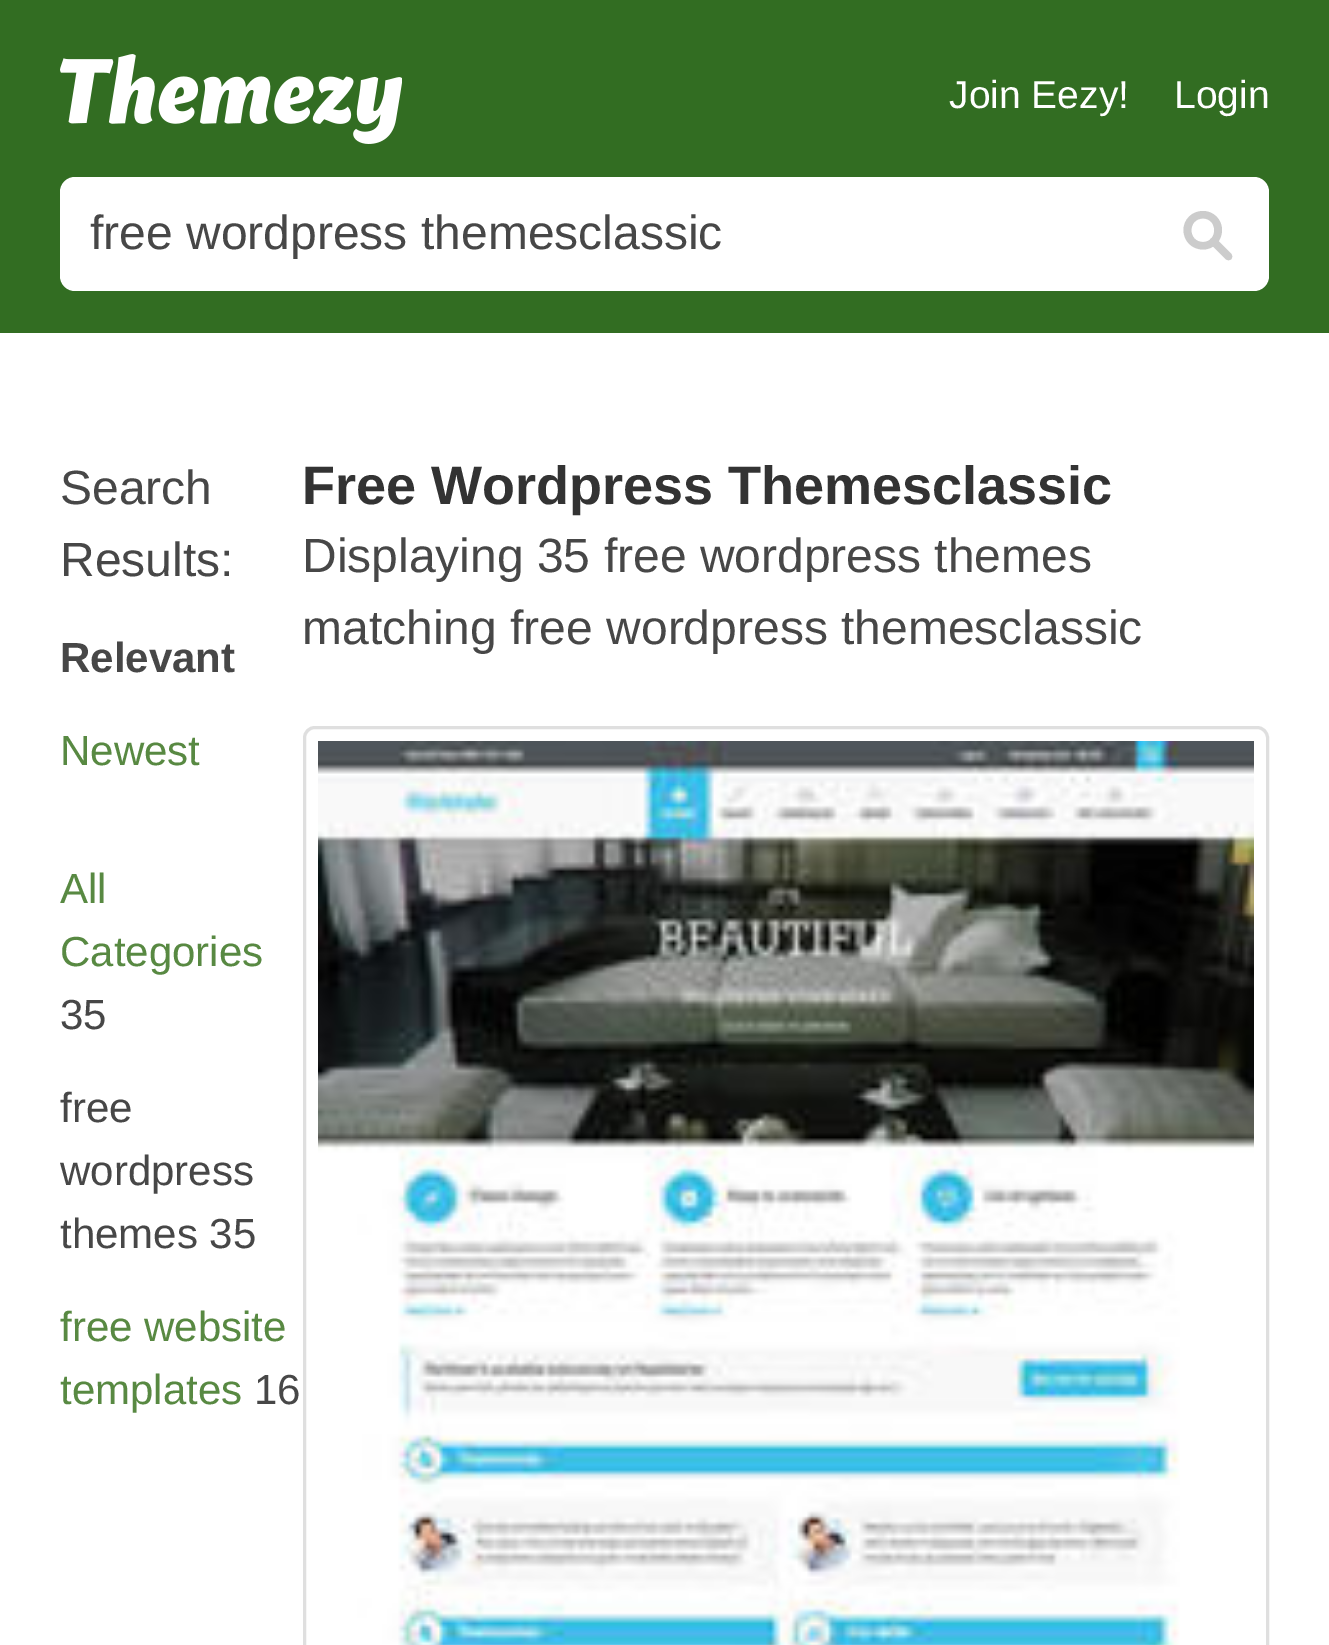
%!PS-Adobe-3.0
%%BoundingBox: 0 0 1329 1645
%%LanguageLevel: 3
%%Pages: 1
%%EndComments
%%BeginProlog
/setink { dup -16 bitshift 255 div exch dup -8 bitshift 255 and 255 div exch 255 and 255 div setrgbcolor } def
/usefont { [ exch dup neg 0 0 3 -1 roll 0 0 ] selectfont } def
/rrect { 5 dict begin { /r /h /w /y /x } { exch def } forall
  x r add y moveto x w add y 2 copy h add r arct x w add y h add x 1 index r arct
  x y h add x y r arct x y 2 copy exch w add exch r arct closepath end } def
/drawimage { 5 dict begin { /h /w /y /x /name } { exch def } forall
  gsave x y translate w h scale
  w h 8 [w 0 0 h 0 0] name (r) file false 3 colorimage grestore end } def
%%EndProlog
%%BeginSetup
<< /PageSize [1329 1645] >> setpagedevice
%%EndSetup
%%Page: 1 1
0 1645 translate 1 -1 scale
4 setmiterlimit
16#FFFFFF setink
0 0 1329 1645 rectfill
16#326D22 setink
0 0 1329 333 rectfill
(img1.raw) 60 54 342 90 drawimage
/LiberationSans-Regular 39 usefont
16#FFFFFF setink
949 108 moveto (Join Eezy!) show
1174 108 moveto (Login) show
60 177 1209 114 15 rrect fill
/LiberationSans-Regular 48 usefont
16#474747 setink
90 249 moveto (free wordpress themesclassic) show
16#CCCCCC setink
1203 218.5 moveto 1218 218.5 1218 242 1203 242 curveto 1187.5 242 1187.5 218.5 1203 218.5 curveto 1203 211 moveto 1192 211 1183.5 219.5 1183.5 230 curveto 1183.5 241 1192 249.5 1203 249.5 curveto 1213.5 249.5 1222 241 1222 230 curveto 1222 219.5 1213.5 211 1203 211 curveto closepath fill
7.6 setlinewidth
1 setlinecap
1 setlinejoin
1213.5 241.5 moveto 1228.5 256.5 lineto stroke
16#474747 setink
60 504 moveto (Search) show
60 576 moveto (Results:) show
/LiberationSans-Bold 42 usefont
60 672 moveto (Relevant) show
/LiberationSans-Regular 42 usefont
16#588942 setink
[
    [(Newest) 60 765]
    [(All) 60 903]
    [(Categories) 60 966]
] { aload pop moveto show } forall
16#474747 setink
[
    [(35) 60 1029]
    [(free) 60 1122]
    [(wordpress) 60 1185]
    [(themes 35) 60 1248]
] { aload pop moveto show } forall
16#588942 setink
60 1341 moveto (free website) show
60 1404 moveto (templates) show
16#474747 setink
254 1404 moveto (16) show
/LiberationSans-Bold 54 usefont
16#333333 setink
302 504 moveto (Free Wordpress Themesclassic) show
/LiberationSans-Regular 48 usefont
16#474747 setink
302 572 moveto (Displaying 35 free wordpress themes) show
302 644 moveto (matching free wordpress themesclassic) show
16#DFDFDF setink
3 setlinewidth
0 setlinecap
0 setlinejoin
304.5 727.5 963 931 10.5 rrect stroke
(img2.raw) 318 741 936 904 drawimage
showpage
%%EOF
